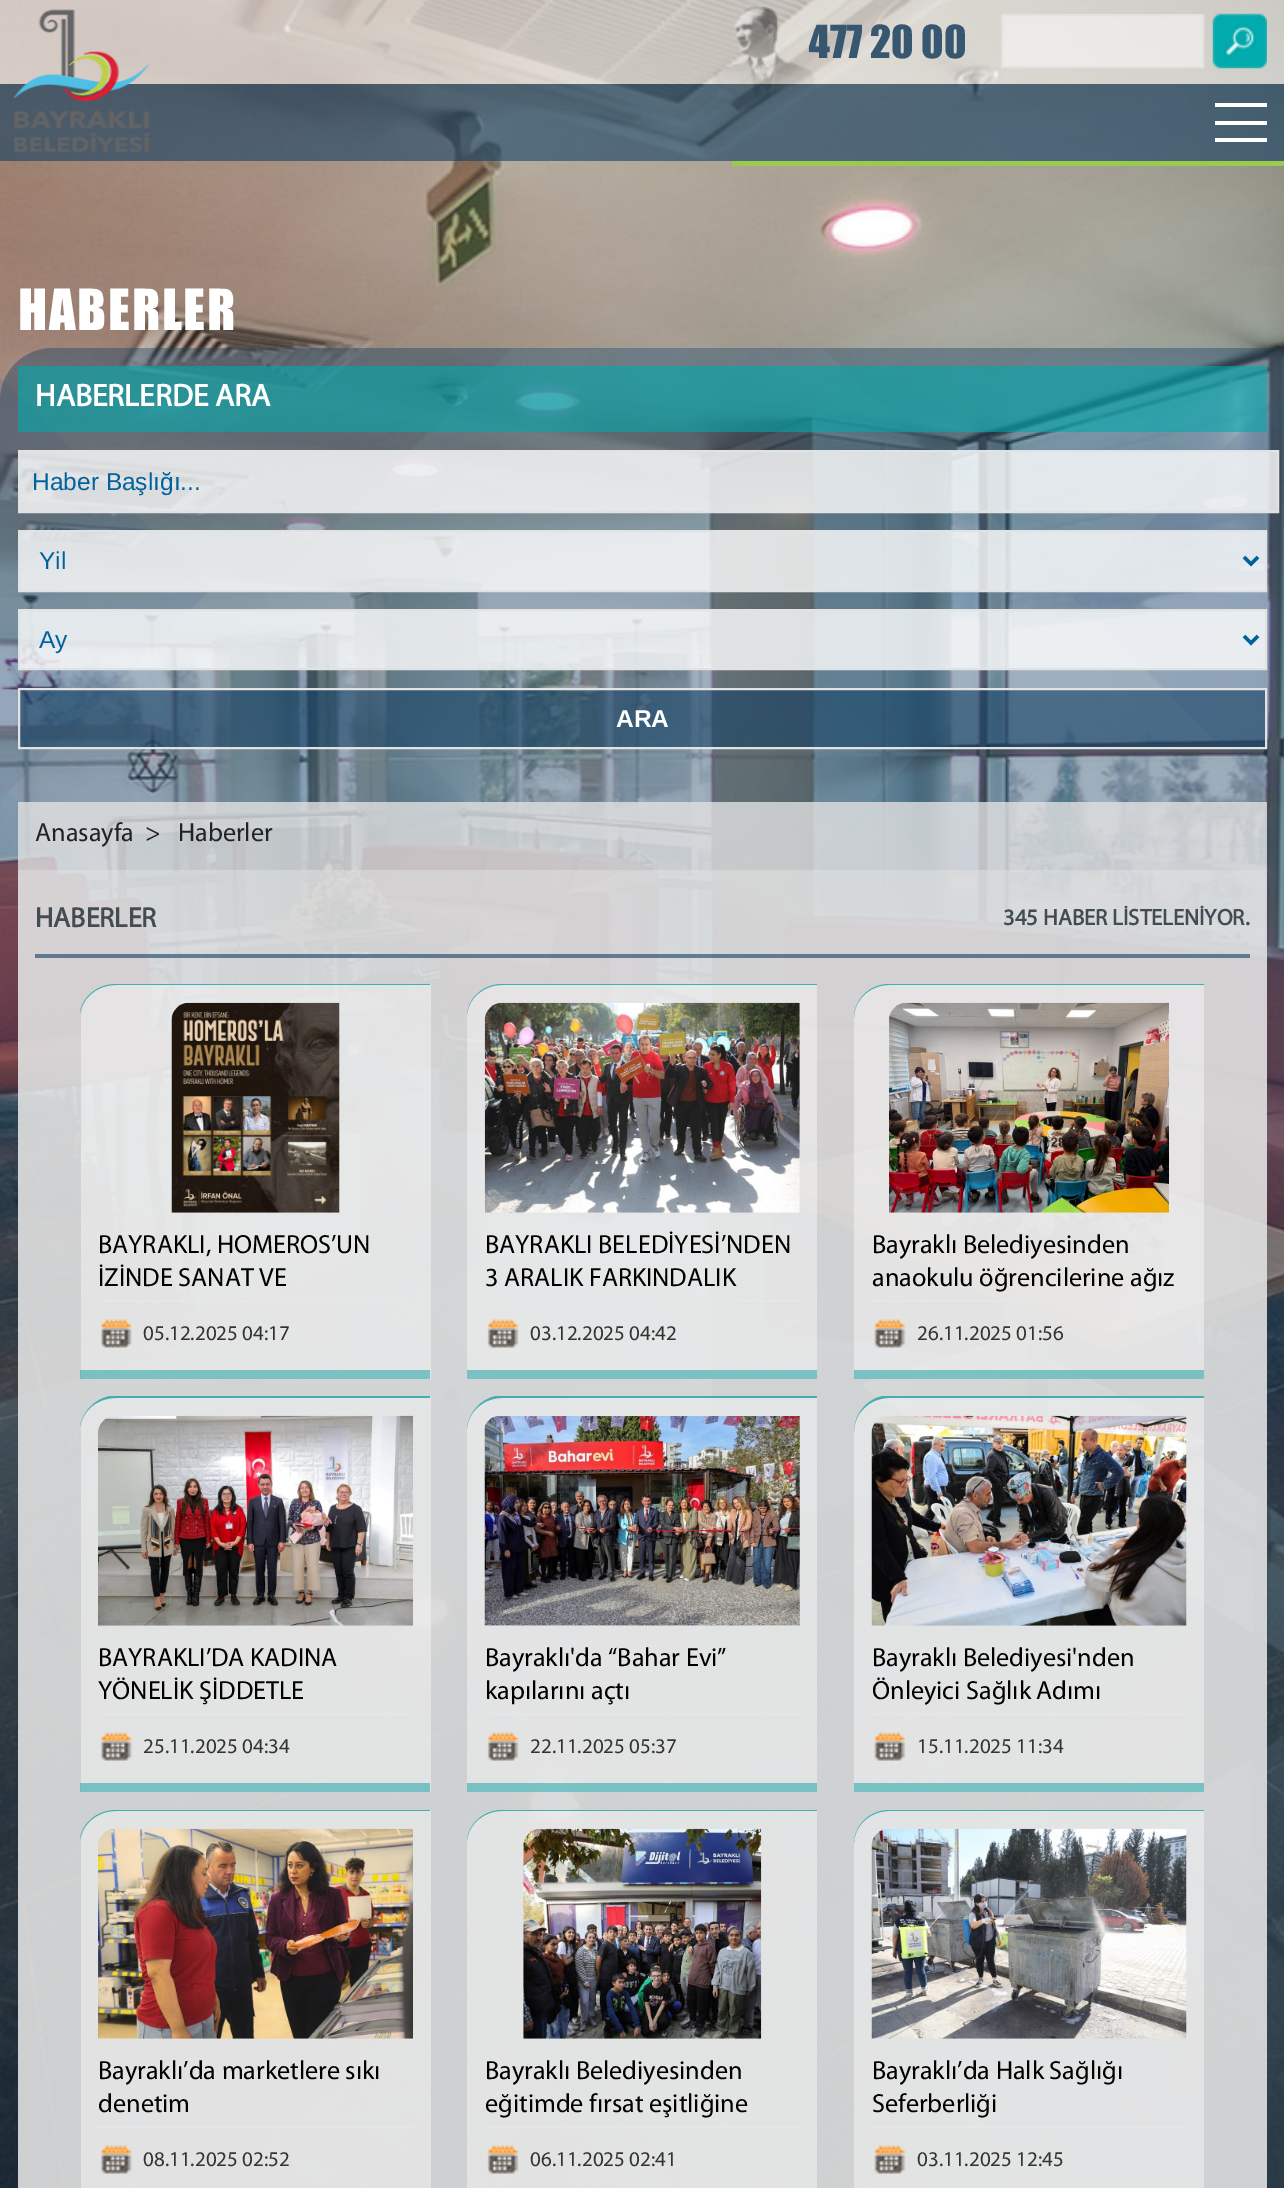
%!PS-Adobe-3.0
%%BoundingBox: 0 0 1284 2188
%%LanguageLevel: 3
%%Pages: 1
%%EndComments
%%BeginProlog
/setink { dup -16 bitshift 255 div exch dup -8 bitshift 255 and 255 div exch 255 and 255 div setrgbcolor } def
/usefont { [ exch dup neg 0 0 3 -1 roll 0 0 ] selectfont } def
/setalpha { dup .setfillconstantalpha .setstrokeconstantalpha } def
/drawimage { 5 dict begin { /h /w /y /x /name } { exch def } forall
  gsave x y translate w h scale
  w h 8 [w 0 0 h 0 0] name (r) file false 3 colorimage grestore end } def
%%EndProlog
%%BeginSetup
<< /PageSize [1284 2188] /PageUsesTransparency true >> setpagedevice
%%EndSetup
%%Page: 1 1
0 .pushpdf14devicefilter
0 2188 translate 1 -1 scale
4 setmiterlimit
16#FFFFFF setink
0 0 1284 2188 rectfill
(img1.raw) 0 0 1284 2188 drawimage
0.6 setalpha
0 0 1284 84 rectfill
16#133F63 setink
0 84 1284 77 rectfill
1 setalpha
(img2.raw) 13 9 137 144 drawimage
/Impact-Regular 42 usefont
16#375770 setink
809 58 moveto (477 20 00) show
(img3.raw) 711 5 104 94 drawimage
0.5 setalpha
16#FFFFFF setink
1002 15 moveto 1203 15 lineto 1203 67 lineto 1002 67 lineto closepath fill
1 setalpha
16#E2E2E2 setink
2 setlinewidth
1002 15 moveto 1203 15 lineto 1203 67 lineto 1002 67 lineto closepath stroke
(img4.raw) 1212 13 55 56 drawimage
[
    [1215 103 52 4 16#FFFFFF]
    [1215 121 52 4 16#FFFFFF]
    [1215 138 52 4 16#FFFFFF]
    [732 161 552 5 16#98CB4F]
] { aload pop setink rectfill } forall
/Impact-Regular 52.5 usefont
16#FFFFFF setink
18 330 moveto 1.75 0 (HABERLER) ashow
(img5.raw) 0 348 1284 1840 drawimage
0.4 setalpha
16#133F63 setink
53 348 moveto 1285 348 lineto 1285 2188 lineto 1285 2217.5 1261.5 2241 1232 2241 curveto 0 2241 lineto 0 401 lineto 0 371.5 23.5 348 53 348 curveto closepath fill
0.6 setalpha
16#00A9AD setink
18 366 1249 66 rectfill
/Myriad-Bold 31.5 usefont
1 setalpha
16#FFFFFF setink
35 406 moveto (HABERLERDE ARA) show
0.8 setalpha
19 451 moveto 1278 451 lineto 1278 512 lineto 19 512 lineto closepath fill
1 setalpha
16#E2E2E2 setink
19 451 moveto 1278 451 lineto 1278 512 lineto 19 512 lineto closepath stroke
/LiberationSans-Regular 24.5 usefont
16#00629C setink
32 490 moveto (Haber Başlığı...) show
0.8 setalpha
16#FFFFFF setink
19 531 moveto 1266 531 lineto 1266 591 lineto 19 591 lineto closepath fill
1 setalpha
16#E2E2E2 setink
19 531 moveto 1266 531 lineto 1266 591 lineto 19 591 lineto closepath stroke
16#00629C setink
3.5 setlinewidth
1244 557 moveto 1251 564 lineto 1258 557 lineto stroke
39 569 moveto (Yil) show
0.8 setalpha
16#FFFFFF setink
19 610 moveto 1266 610 lineto 1266 669 lineto 19 669 lineto closepath fill
1 setalpha
16#E2E2E2 setink
2 setlinewidth
19 610 moveto 1266 610 lineto 1266 669 lineto 19 669 lineto closepath stroke
16#00629C setink
3.5 setlinewidth
1244 636 moveto 1251 643 lineto 1258 636 lineto stroke
39 648 moveto (Ay) show
0.6 setalpha
16#133F63 setink
19 689 moveto 1266 689 lineto 1266 748 lineto 19 748 lineto closepath fill
1 setalpha
16#E2E2E2 setink
2 setlinewidth
19 689 moveto 1266 689 lineto 1266 748 lineto 19 748 lineto closepath stroke
/LiberationSans-Bold 24.5 usefont
16#FFFFFF setink
616 727 moveto (ARA) show
0.8 setalpha
16#E1E1E1 setink
18 802 1249 68 rectfill
/Myriad-Regular 26.25 usefont
1 setalpha
16#222222 setink
[
    [(Anasayfa) 35 841]
    [(>) 145 841]
    [(Haberler) 178 841]
] { aload pop moveto show } forall
0.9 setalpha
16#E1E1E1 setink
18 870 1249 1318 rectfill
0.6 setalpha
16#133F63 setink
35 954 1215 4 rectfill
/Myriad-Bold 28 usefont
1 setalpha
16#414C53 setink
35 927 moveto (HABERLER) show
/Myriad-Bold 22.75 usefont
1003 925 moveto (345 HABER LİSTELENİYOR.) show
0.4 setalpha
16#FFFFFF setink
116 984 moveto 431 984 lineto 431 1379 lineto 81 1379 lineto 81 1019 lineto 81 999.5 96.5 984 116 984 curveto closepath fill
0.9 setalpha
16#32A9AD setink
116 984 moveto 430 984 lineto 430 985 lineto 116 985 lineto 98 985 83 997 80 1013 curveto 80 1012 lineto 83 996 98 984 116 984 curveto closepath fill
0.6 setalpha
80 1370 350 9 rectfill
1 setalpha
(img6.raw) 171 1002 169 211 drawimage
0.7 setalpha
16#E5E8EA setink
98 1300 315 2 rectfill
/Myriad-Regular 26.25 usefont
1 setalpha
16#000000 setink
98 1253 moveto (BAYRAKLI, HOMEROS’UN) show
98 1286 moveto (İZİNDE SANAT VE) show
(img7.raw) 101 1319 31 29 drawimage
/Myriad-Regular 21 usefont
16#333333 setink
143 1340 moveto (05.12.2025 04:17) show
0.4 setalpha
16#FFFFFF setink
502 984 moveto 817 984 lineto 817 1379 lineto 467 1379 lineto 467 1019 lineto 467 999.5 482.5 984 502 984 curveto closepath fill
0.9 setalpha
16#32A9AD setink
502 984 moveto 817 984 lineto 817 985 lineto 502 985 lineto 484 985 469 998 467 1014 curveto 469 997 484 984 502 984 curveto closepath fill
0.6 setalpha
467 1370 350 9 rectfill
1 setalpha
(img8.raw) 484 1002 316 211 drawimage
0.7 setalpha
16#E5E8EA setink
710 1300 90 2 rectfill
/Myriad-Regular 26.25 usefont
1 setalpha
16#000000 setink
485 1253 moveto (BAYRAKLI BELEDİYESİ’NDEN) show
485 1286 moveto (3 ARALIK FARKINDALIK) show
(img9.raw) 487 1319 32 29 drawimage
/Myriad-Regular 21 usefont
16#333333 setink
530 1340 moveto (03.12.2025 04:42) show
0.4 setalpha
16#FFFFFF setink
889 984 moveto 1204 984 lineto 1204 1379 lineto 854 1379 lineto 854 1019 lineto 854 999.5 869.5 984 889 984 curveto closepath fill
0.9 setalpha
16#32A9AD setink
889 984 moveto 1204 984 lineto 1204 985 lineto 889 985 lineto 870 985 854 1000 854 1018 curveto 854 999 870 984 889 984 curveto closepath fill
0.6 setalpha
854 1370 350 9 rectfill
1 setalpha
(img10.raw) 889 1002 280 211 drawimage
0.7 setalpha
16#E5E8EA setink
872 1300 261 2 rectfill
/Myriad-Regular 26.25 usefont
1 setalpha
16#000000 setink
872 1253 moveto (Bayraklı Belediyesinden) show
872 1286 moveto (anaokulu öğrencilerine ağız) show
(img11.raw) 874 1319 32 29 drawimage
/Myriad-Regular 21 usefont
16#333333 setink
917 1340 moveto (26.11.2025 01:56) show
0.4 setalpha
16#FFFFFF setink
116 1397 moveto 431 1397 lineto 431 1792 lineto 81 1792 lineto 81 1432 lineto 81 1412.5 96.5 1397 116 1397 curveto closepath fill
0.9 setalpha
16#32A9AD setink
430 1396 moveto 110 1396 lineto 95 1399 83 1411 80 1426 curveto 83 1410 98 1398 116 1398 curveto 430 1398 lineto closepath fill
0.6 setalpha
80 1783 350 9 rectfill
1 setalpha
(img12.raw) 98 1415 315 211 drawimage
16#E4E6E8 setink
98 1713 315 2 rectfill
/Myriad-Regular 26.25 usefont
16#000000 setink
98 1666 moveto (BAYRAKLI’DA KADINA) show
98 1699 moveto (YÖNELİK ŞİDDETLE) show
(img13.raw) 101 1732 31 29 drawimage
/Myriad-Regular 21 usefont
16#333333 setink
143 1753 moveto (25.11.2025 04:34) show
0.4 setalpha
16#FFFFFF setink
502 1397 moveto 817 1397 lineto 817 1792 lineto 467 1792 lineto 467 1432 lineto 467 1412.5 482.5 1397 502 1397 curveto closepath fill
0.9 setalpha
16#32A9AD setink
817 1396 moveto 496 1396 lineto 481 1399 469 1412 467 1428 curveto 469 1411 484 1398 502 1398 curveto 817 1398 lineto closepath fill
0.6 setalpha
467 1783 350 9 rectfill
1 setalpha
(img14.raw) 484 1416 316 210 drawimage
0.7 setalpha
16#E5E8EA setink
485 1713 315 2 rectfill
/Myriad-Regular 26.25 usefont
1 setalpha
16#000000 setink
485 1666 moveto (Bayraklı'da “Bahar Evi”) show
485 1699 moveto (kapılarını açtı) show
(img15.raw) 487 1732 32 29 drawimage
/Myriad-Regular 21 usefont
16#333333 setink
530 1753 moveto (22.11.2025 05:37) show
0.4 setalpha
16#FFFFFF setink
889 1397 moveto 1204 1397 lineto 1204 1792 lineto 854 1792 lineto 854 1432 lineto 854 1412.5 869.5 1397 889 1397 curveto closepath fill
0.9 setalpha
16#32A9AD setink
1204 1396 moveto 883 1396 lineto 867 1399 854 1414 854 1432 curveto 854 1413 870 1398 889 1398 curveto 1204 1398 lineto closepath fill
0.6 setalpha
854 1783 350 9 rectfill
1 setalpha
(img16.raw) 871 1415 316 211 drawimage
16#E4E6E8 setink
872 1713 315 2 rectfill
/Myriad-Regular 26.25 usefont
16#000000 setink
872 1666 moveto (Bayraklı Belediyesi'nden) show
872 1699 moveto (Önleyici Sağlık Adımı) show
(img17.raw) 874 1732 32 29 drawimage
/Myriad-Regular 21 usefont
16#333333 setink
917 1753 moveto (15.11.2025 11:34) show
0.4 setalpha
16#FFFFFF setink
116 1810 moveto 431 1810 lineto 431 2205 lineto 81 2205 lineto 81 1845 lineto 81 1825.5 96.5 1810 116 1810 curveto closepath fill
0.9 setalpha
16#32A9AD setink
116 1810 moveto 430 1810 lineto 430 1811 lineto 116 1811 lineto 98 1811 83 1823 80 1839 curveto 80 1838 lineto 83 1822 98 1810 116 1810 curveto closepath fill
1 setalpha
(img18.raw) 98 1828 315 211 drawimage
16#E4E6E8 setink
98 2126 315 2 rectfill
/Myriad-Regular 26.25 usefont
16#000000 setink
98 2079 moveto (Bayraklı’da marketlere sıkı) show
98 2112 moveto (denetim) show
(img19.raw) 101 2145 31 29 drawimage
/Myriad-Regular 21 usefont
16#333333 setink
143 2166 moveto (08.11.2025 02:52) show
0.4 setalpha
16#FFFFFF setink
502 1810 moveto 817 1810 lineto 817 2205 lineto 467 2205 lineto 467 1845 lineto 467 1825.5 482.5 1810 502 1810 curveto closepath fill
0.9 setalpha
16#32A9AD setink
502 1810 moveto 817 1810 lineto 817 1811 lineto 502 1811 lineto 484 1811 469 1824 467 1840 curveto 469 1823 484 1810 502 1810 curveto closepath fill
1 setalpha
(img20.raw) 523 1828 239 211 drawimage
16#E4E6E8 setink
485 2126 315 2 rectfill
/Myriad-Regular 26.25 usefont
16#000000 setink
485 2079 moveto (Bayraklı Belediyesinden) show
485 2112 moveto (eğitimde fırsat eşitliğine) show
(img21.raw) 487 2145 32 29 drawimage
/Myriad-Regular 21 usefont
16#333333 setink
530 2166 moveto (06.11.2025 02:41) show
0.4 setalpha
16#FFFFFF setink
889 1810 moveto 1204 1810 lineto 1204 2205 lineto 854 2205 lineto 854 1845 lineto 854 1825.5 869.5 1810 889 1810 curveto closepath fill
0.9 setalpha
16#32A9AD setink
889 1810 moveto 1204 1810 lineto 1204 1811 lineto 889 1811 lineto 870 1811 854 1826 854 1844 curveto 854 1825 870 1810 889 1810 curveto closepath fill
1 setalpha
(img22.raw) 871 1828 316 211 drawimage
16#E4E6E8 setink
872 2126 315 2 rectfill
/Myriad-Regular 26.25 usefont
16#000000 setink
872 2079 moveto (Bayraklı’da Halk Sağlığı) show
872 2112 moveto (Seferberliği) show
(img23.raw) 874 2145 32 29 drawimage
/Myriad-Regular 21 usefont
16#333333 setink
917 2166 moveto (03.11.2025 12:45) show
.poppdf14devicefilter showpage
%%EOF
